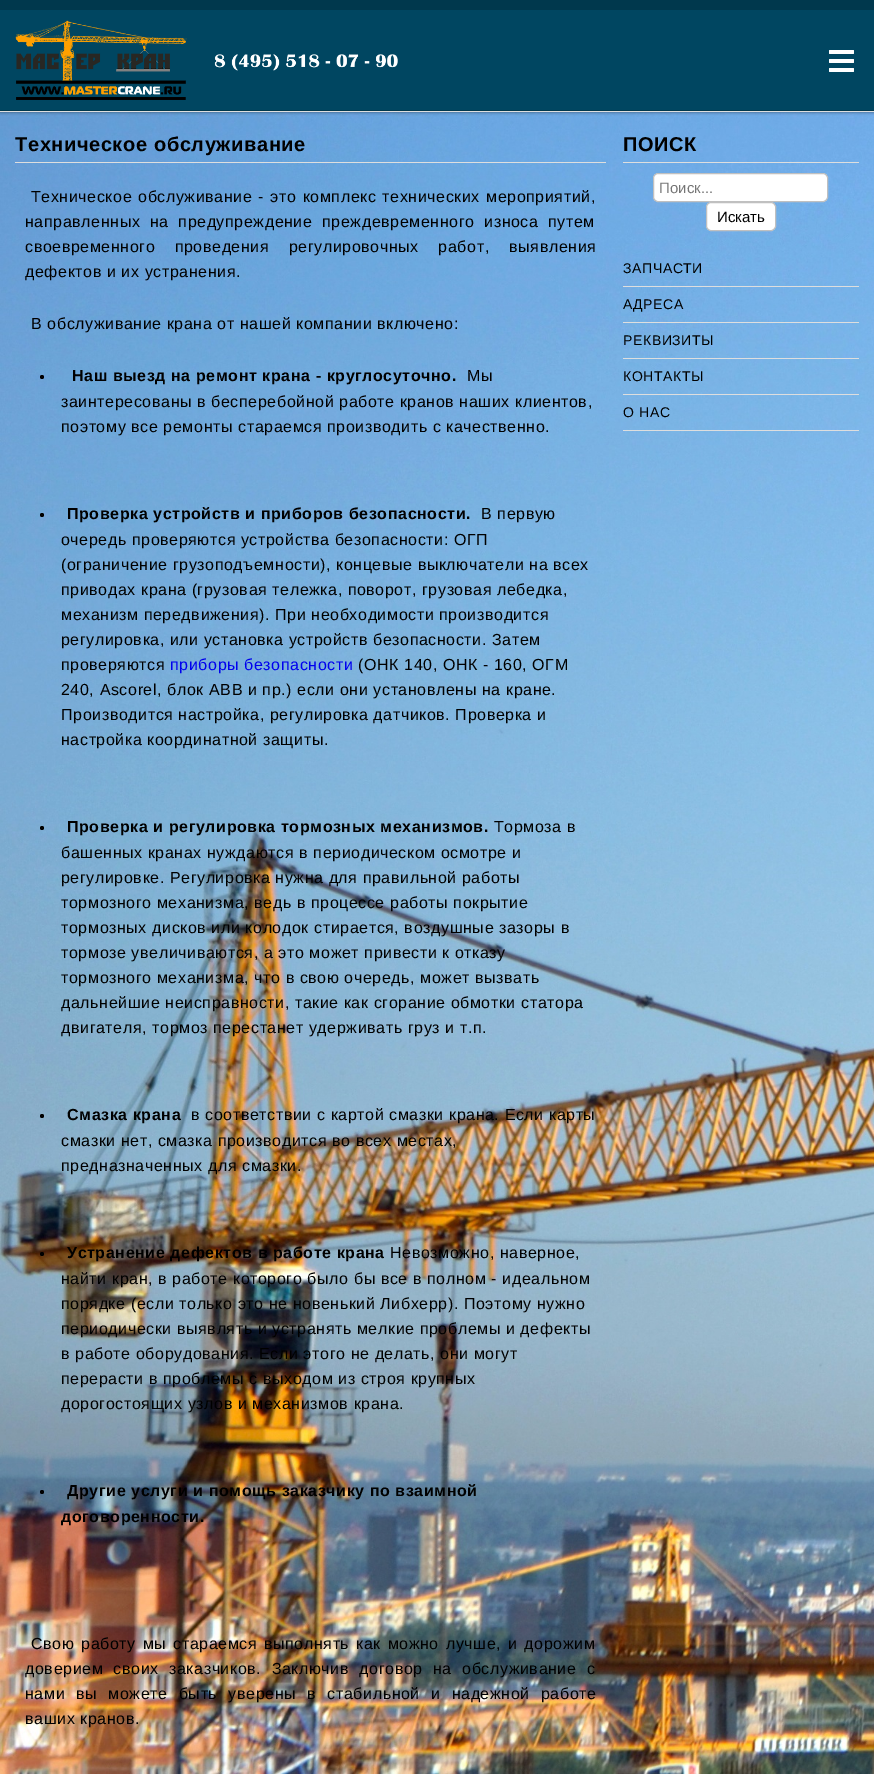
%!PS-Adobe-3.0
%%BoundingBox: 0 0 874 1774
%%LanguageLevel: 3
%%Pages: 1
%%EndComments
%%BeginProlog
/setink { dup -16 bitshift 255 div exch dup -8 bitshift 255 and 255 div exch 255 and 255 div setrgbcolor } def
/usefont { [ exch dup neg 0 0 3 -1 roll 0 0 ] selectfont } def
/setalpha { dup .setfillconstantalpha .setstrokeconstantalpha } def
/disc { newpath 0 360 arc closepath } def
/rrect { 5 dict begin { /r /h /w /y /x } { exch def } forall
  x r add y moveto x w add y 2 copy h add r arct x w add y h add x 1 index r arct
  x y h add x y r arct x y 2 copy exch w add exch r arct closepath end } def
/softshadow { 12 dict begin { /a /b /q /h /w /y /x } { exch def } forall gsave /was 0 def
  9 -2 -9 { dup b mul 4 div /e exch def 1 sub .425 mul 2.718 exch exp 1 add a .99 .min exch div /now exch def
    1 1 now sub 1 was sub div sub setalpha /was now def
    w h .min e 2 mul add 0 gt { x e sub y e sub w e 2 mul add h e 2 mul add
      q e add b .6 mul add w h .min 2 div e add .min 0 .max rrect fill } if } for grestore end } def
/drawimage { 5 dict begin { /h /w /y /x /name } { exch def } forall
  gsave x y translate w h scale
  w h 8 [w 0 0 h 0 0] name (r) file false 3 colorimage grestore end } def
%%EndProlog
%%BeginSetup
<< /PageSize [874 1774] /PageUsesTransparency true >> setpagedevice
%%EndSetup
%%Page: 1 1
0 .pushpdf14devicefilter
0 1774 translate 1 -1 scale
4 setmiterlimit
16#FFFFFF setink
0 0 874 1774 rectfill
(img1.raw) 0 112 874 1662 drawimage
16#111111 setink
0 0 874 111 0 2 1 softshadow
[
    [0 10 874 100 16#004661]
    [0 0 874 10 16#00384D]
    [0 110 874 1 16#00384D]
] { aload pop setink rectfill } forall
(img2.raw) 15 20 383 80 drawimage
16#FFFFFF setink
829 50 25 4 1 rrect fill
829 59 25 4 1 rrect fill
829 68 25 4 1 rrect fill
16#DEDEDE setink
0 111 874 1 rectfill
15 162 591 1 rectfill
/LiberationSans-Bold 20 usefont
16#000000 setink
15 151 moveto 0.6 0 (Техническое обслуживание) ashow
/LiberationSans-Regular 16 usefont
31 202 moveto 1 0 32 0.6 0 (Техническое обслуживание - это комплекс технических мероприятий,) awidthshow
25 227 moveto 4.5 0 32 0.6 0 (направленных на предупреждение преждевременного износа путем) awidthshow
25 252 moveto 14.5 0 32 0.6 0 (своевременного проведения регулировочных работ, выявления) awidthshow
25 277 moveto 0.6 0 (дефектов и их устранения.) ashow
31 329 moveto 0.6 0 (В обслуживание крана от нашей компании включено:) ashow
42 377 2 disc fill
/LiberationSans-Bold 16 usefont
72 381 moveto 0.6 0 (Наш выезд на ремонт крана - круглосуточно.) ashow
/LiberationSans-Regular 16 usefont
467 381 moveto 0.6 0 (Мы) ashow
61 407 moveto 0.6 0 (заинтересованы в бесперебойной работе кранов наших клиентов,) ashow
61 432 moveto 0.6 0 (поэтому все ремонты стараемся производить с качественно.) ashow
42 515 2 disc fill
/LiberationSans-Bold 16 usefont
67 519 moveto 0.6 0 (Проверка устройств и приборов безопасности.) ashow
/LiberationSans-Regular 16 usefont
481 519 moveto 0.6 0 (В первую) ashow
61 545 moveto 0.6 0 (очередь проверяются устройства безопасности: ОГП) ashow
61 570 moveto 0.6 0 (\(ограничение грузоподъемности\), концевые выключатели на всех) ashow
61 595 moveto 0.6 0 (приводах крана \(грузовая тележка, поворот, грузовая лебедка,) ashow
61 620 moveto 0.6 0 (механизм передвижения\). При необходимости производится) ashow
61 645 moveto 0.6 0 (регулировка, или установка устройств безопасности. Затем) ashow
61 670 moveto 0.6 0 (проверяются) ashow
16#0000EE setink
170 670 moveto 0.6 0 (приборы безопасности) ashow
16#000000 setink
358 670 moveto 0.6 0 (\(ОНК 140, ОНК - 160, ОГМ) ashow
61 695 moveto 0.6 0 (240, Ascorel, блок ABB и пр.\) если они установлены на кране.) ashow
61 720 moveto 0.6 0 (Производится настройка, регулировка датчиков. Проверка и) ashow
61 745 moveto 0.6 0 (настройка координатной защиты.) ashow
42 828 2 disc fill
/LiberationSans-Bold 16 usefont
67 832 moveto 0.6 0 (Проверка и регулировка тормозных механизмов.) ashow
/LiberationSans-Regular 16 usefont
494 832 moveto 0.6 0 (Тормоза в) ashow
61 858 moveto 0.6 0 (башенных кранах нуждаются в периодическом осмотре и) ashow
61 883 moveto 0.6 0 (регулировке. Регулировка нужна для правильной работы) ashow
61 908 moveto 0.6 0 (тормозного механизма, ведь в процессе работы покрытие) ashow
61 933 moveto 0.6 0 (тормозных дисков или колодок стирается, воздушные зазоры в) ashow
61 958 moveto 0.6 0 (тормозе увеличиваются, а это может привести к отказу) ashow
61 983 moveto 0.6 0 (тормозного механизма, что в свою очередь, может вызвать) ashow
61 1008 moveto 0.6 0 (дальнейшие неисправности, такие как сгорание обмотки статора) ashow
61 1033 moveto 0.6 0 (двигателя, тормоз перестанет удерживать груз и т.п.) ashow
42 1116 2 disc fill
/LiberationSans-Bold 16 usefont
67 1120 moveto 0.6 0 (Смазка крана) ashow
/LiberationSans-Regular 16 usefont
191 1120 moveto 0.6 0 (в соответствии с картой смазки крана. Если карты) ashow
61 1146 moveto 0.6 0 (смазки нет, смазка производится во всех местах,) ashow
61 1171 moveto 0.6 0 (предназначенных для смазки.) ashow
42 1254 2 disc fill
/LiberationSans-Bold 16 usefont
67 1258 moveto 0.6 0 (Устранение дефектов в работе крана) ashow
/LiberationSans-Regular 16 usefont
390 1258 moveto 0.6 0 (Невозможно, наверное,) ashow
61 1284 moveto 0.6 0 (найти кран, в работе которого было бы все в полном - идеальном) ashow
61 1309 moveto 0.6 0 (порядке \(если только это не новенький Либхерр\). Поэтому нужно) ashow
61 1334 moveto 0.6 0 (периодически выявлять и устранять мелкие проблемы и дефекты) ashow
61 1359 moveto 0.6 0 (в работе оборудования. Если этого не делать, они могут) ashow
61 1384 moveto 0.6 0 (перерасти в проблемы с выходом из строя крупных) ashow
61 1409 moveto 0.6 0 (дорогостоящих узлов и механизмов крана.) ashow
42 1492 2 disc fill
/LiberationSans-Bold 16 usefont
67 1496 moveto 0.6 0 (Другие услуги и помощь заказчику по взаимной) ashow
61 1522 moveto 0.6 0 (договоренности.) ashow
/LiberationSans-Regular 16 usefont
31 1649 moveto 1.75 0 32 0.6 0 (Свою работу мы стараемся выполнять как можно лучше, и дорожим) awidthshow
25 1674 moveto 5.25 0 32 0.6 0 (доверием своих заказчиков. Заключив договор на обслуживание с) awidthshow
25 1699 moveto 6 0 32 0.6 0 (нами вы можете быть уверены в стабильной и надежной работе) awidthshow
25 1724 moveto 0.6 0 (ваших кранов.) ashow
16#DEDEDE setink
623 162 236 1 rectfill
/LiberationSans-Bold 20 usefont
16#000000 setink
623 151 moveto 0.6 0 (ПОИСК) ashow
16#FFFFFF setink
653.5 173.5 174 28 4.5 rrect gsave fill grestore
16#C0C0C0 setink
stroke
/LiberationSans-Regular 15 usefont
16#757575 setink
659 193 moveto (Поиск...) show
16#FFFFFF setink
706.5 202.5 69 28 4.5 rrect gsave fill grestore
16#C0C0C0 setink
stroke
16#000000 setink
717 222 moveto (Искать) show
16#DEDEDE setink
623 286 236 1 rectfill
/LiberationSans-Regular 14 usefont
16#000000 setink
623 273 moveto 0.6 0 (ЗАПЧАСТИ) ashow
16#DEDEDE setink
623 322 236 1 rectfill
16#000000 setink
623 309 moveto 0.6 0 (АДРЕСА) ashow
16#DEDEDE setink
623 358 236 1 rectfill
16#000000 setink
623 345 moveto 0.6 0 (РЕКВИЗИТЫ) ashow
16#DEDEDE setink
623 394 236 1 rectfill
16#000000 setink
623 381 moveto 0.6 0 (КОНТАКТЫ) ashow
16#DEDEDE setink
623 430 236 1 rectfill
16#000000 setink
623 417 moveto 0.6 0 (О НАС) ashow
.poppdf14devicefilter showpage
%%EOF
